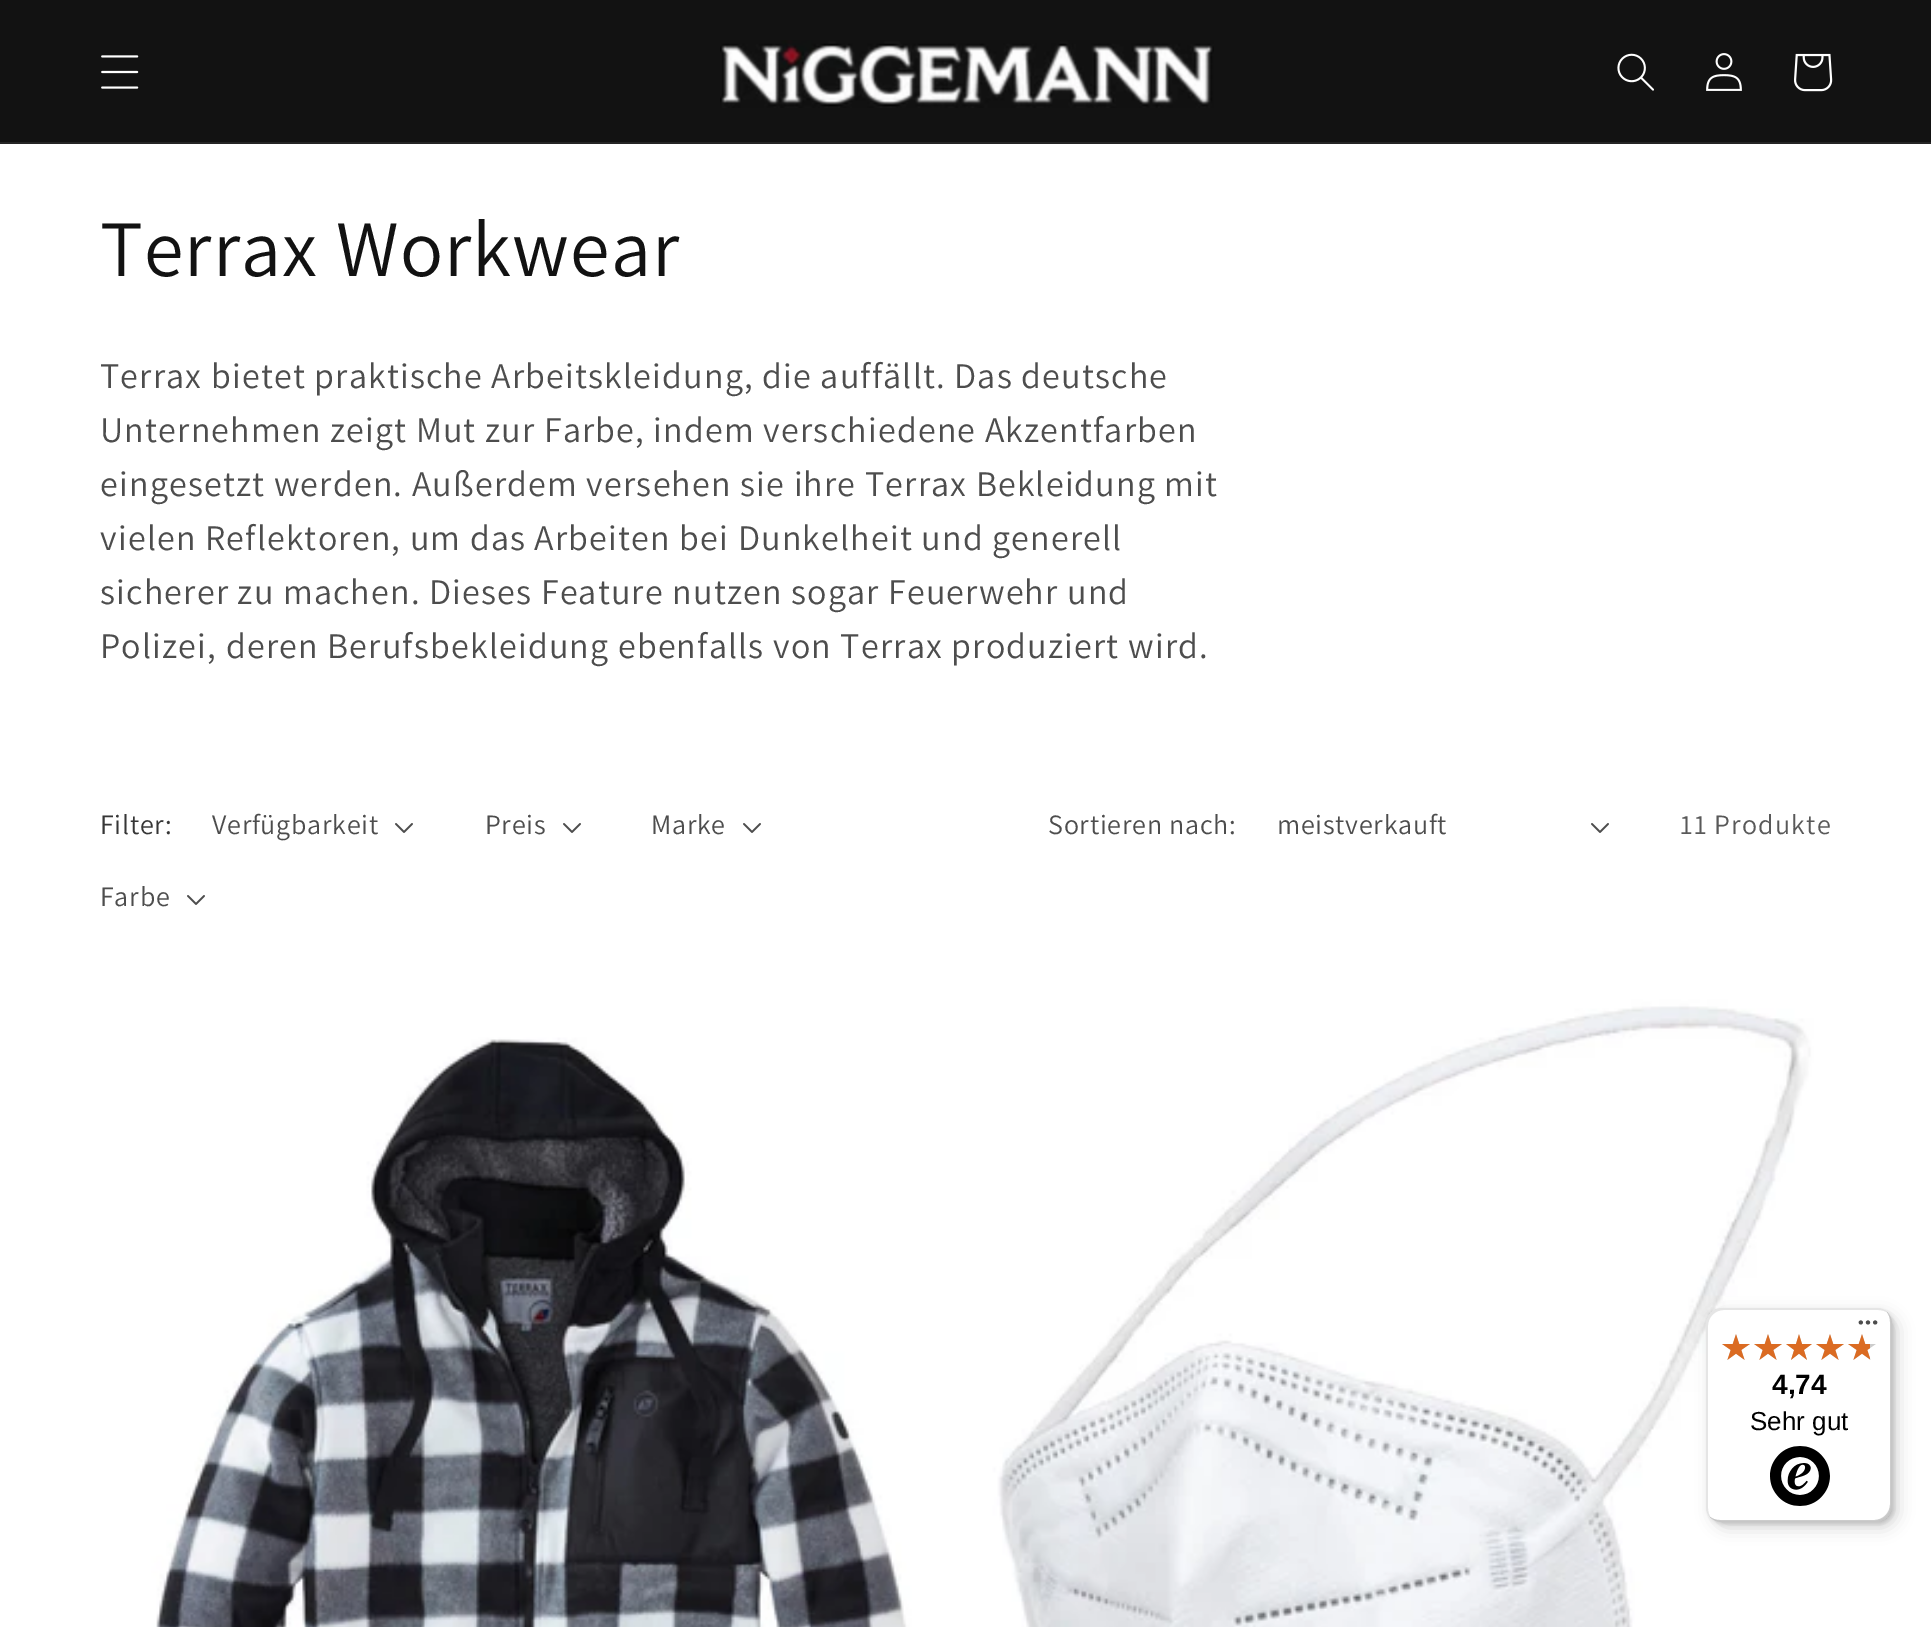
%!PS-Adobe-3.0
%%BoundingBox: 0 0 1931 1627
%%LanguageLevel: 3
%%Pages: 1
%%EndComments
%%BeginProlog
/setink { dup -16 bitshift 255 div exch dup -8 bitshift 255 and 255 div exch 255 and 255 div setrgbcolor } def
/usefont { [ exch dup neg 0 0 3 -1 roll 0 0 ] selectfont } def
/setalpha { dup .setfillconstantalpha .setstrokeconstantalpha } def
/rrect { 5 dict begin { /r /h /w /y /x } { exch def } forall
  x r add y moveto x w add y 2 copy h add r arct x w add y h add x 1 index r arct
  x y h add x y r arct x y 2 copy exch w add exch r arct closepath end } def
/softshadow { 12 dict begin { /a /b /q /h /w /y /x } { exch def } forall gsave /was 0 def
  9 -2 -9 { dup b mul 4 div /e exch def 1 sub .425 mul 2.718 exch exp 1 add a .99 .min exch div /now exch def
    1 1 now sub 1 was sub div sub setalpha /was now def
    w h .min e 2 mul add 0 gt { x e sub y e sub w e 2 mul add h e 2 mul add
      q e add b .6 mul add w h .min 2 div e add .min 0 .max rrect fill } if } for grestore end } def
/drawimage { 5 dict begin { /h /w /y /x /name } { exch def } forall
  gsave x y translate w h scale
  w h 8 [w 0 0 h 0 0] name (r) file false 3 colorimage grestore end } def
%%EndProlog
%%BeginSetup
<< /PageSize [1931 1627] /PageUsesTransparency true >> setpagedevice
%%EndSetup
%%Page: 1 1
0 .pushpdf14devicefilter
0 1627 translate 1 -1 scale
4 setmiterlimit
16#FFFFFF setink
0 0 1931 1627 rectfill
16#121212 setink
0 0 1931 142 rectfill
16#252525 setink
0 142 1931 2 rectfill
(img1.raw) 101 55 38 34 drawimage
(img2.raw) 720 40 494 68 drawimage
(img3.raw) 1617 53 37 38 drawimage
(img4.raw) 1706 53 36 38 drawimage
(img5.raw) 1794 53 39 39 drawimage
/Assistant-Regular 80 usefont
16#121212 setink
100 276 moveto 1.2 0 (Terrax Workwear) ashow
/Assistant-Regular 36 usefont
16#4D4D4D setink
100 388 moveto 1.2 0 (Terrax bietet praktische Arbeitskleidung, die auffällt. Das deutsche) ashow
100 442 moveto 1.2 0 (Unternehmen zeigt Mut zur Farbe, indem verschiedene Akzentfarben) ashow
100 496 moveto 1.2 0 (eingesetzt werden. Außerdem versehen sie ihre Terrax Bekleidung mit) ashow
100 550 moveto 1.2 0 (vielen Reflektoren, um das Arbeiten bei Dunkelheit und generell) ashow
100 604 moveto 1.2 0 (sicherer zu machen. Dieses Feature nutzen sogar Feuerwehr und) ashow
100 658 moveto 1.2 0 (Polizei, deren Berufsbekleidung ebenfalls von Terrax produziert wird.) ashow
/Assistant-Regular 28 usefont
16#363636 setink
100 834 moveto 0.75 0 (Filter:) ashow
16#4D4D4D setink
212 834 moveto 0.75 0 (Verfügbarkeit) ashow
(img6.raw) 395 823 18 10 drawimage
485 834 moveto 0.75 0 (Preis) ashow
(img6.raw) 563 823 18 10 drawimage
651 834 moveto 0.75 0 (Marke) ashow
(img6.raw) 743 823 18 10 drawimage
100 906 moveto 0.75 0 (Farbe) ashow
(img6.raw) 187 895 18 10 drawimage
1048 834 moveto 0.75 0 (Sortieren nach:) ashow
1277 834 moveto 0.75 0 (meistverkauft) ashow
(img6.raw) 1591 823 18 10 drawimage
16#595959 setink
1680 834 moveto 1.2 0 (11 Produkte) ashow
(img7.raw) 100 990 858 637 drawimage
(img8.raw) 974 990 858 637 drawimage
16#000000 setink
1712 1314 186 214 16 8 0.15 softshadow
1708 1310 186 214 16 2 0.15 softshadow
16#FFFFFF setink
1706 1308 186 214 16 rrect fill
0.1 setalpha
16#000000 setink
1724 1310 moveto 1878 1310 lineto 1882 1310 1885 1311 1888 1313 curveto 1885 1310 1881 1308 1876 1308 curveto 1722 1308 lineto 1713 1308 1706 1315 1706 1324 curveto 1706 1506 lineto 1706 1511 1708 1515 1711 1518 curveto 1709 1515 1708 1512 1708 1508 curveto 1708 1326 lineto 1708 1317 1715 1310 1724 1310 curveto closepath fill
0.2 setalpha
1710 1517 moveto 1713 1520 1717 1522 1722 1522 curveto 1876 1522 lineto 1885 1522 1892 1515 1892 1506 curveto 1892 1324 lineto 1892 1319 1890 1315 1887 1312 curveto 1889 1315 1890 1318 1890 1322 curveto 1890 1504 lineto 1890 1513 1883 1520 1874 1520 curveto 1720 1520 lineto 1716 1520 1713 1519 1710 1517 curveto closepath fill
16#323232 setink
1711 1517 moveto 1714 1520 1718 1522 1722 1522 curveto 1876 1522 lineto 1885 1522 1892 1515 1892 1506 curveto 1892 1324 lineto 1892 1320 1890 1316 1887 1313 curveto 1890 1316 1891 1319 1891 1323 curveto 1891 1505 lineto 1891 1514 1884 1521 1875 1521 curveto 1721 1521 lineto 1717 1521 1714 1520 1711 1517 curveto closepath fill
0.3 setalpha
16#FFFFFF setink
1711 1517 moveto 1714 1520 1718 1522 1722 1522 curveto 1876 1522 lineto 1885 1522 1892 1515 1892 1506 curveto 1892 1324 lineto 1892 1320 1890 1316 1887 1313 curveto 1890 1316 1891 1319 1891 1323 curveto 1891 1505 lineto 1891 1514 1884 1521 1875 1521 curveto 1721 1521 lineto 1717 1521 1714 1520 1711 1517 curveto closepath fill
1 setalpha
(img9.raw) 1858 1320 20 5 drawimage
(img10.raw) 1722 1334 28 26 drawimage
(img10.raw) 1754 1334 28 26 drawimage
(img11.raw) 1786 1334 26 26 drawimage
(img10.raw) 1816 1334 28 26 drawimage
(img10.raw) 1848 1334 28 26 drawimage
(img12.raw) 1722 1334 28 26 drawimage
(img12.raw) 1754 1334 28 26 drawimage
(img13.raw) 1786 1334 26 26 drawimage
(img12.raw) 1816 1334 28 26 drawimage
(img14.raw) 1848 1334 22 26 drawimage
/LiberationSans-Bold 28 usefont
16#000000 setink
1772 1394 moveto (4,74) show
/LiberationSans-Regular 26 usefont
1750 1430 moveto (Sehr gut) show
(img15.raw) 1770 1446 60 60 drawimage
.poppdf14devicefilter showpage
%%EOF
